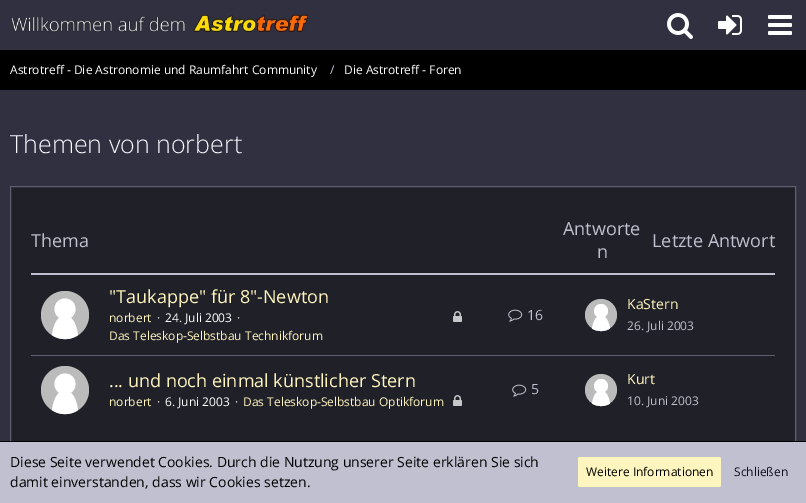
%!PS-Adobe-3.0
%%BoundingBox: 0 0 806 503
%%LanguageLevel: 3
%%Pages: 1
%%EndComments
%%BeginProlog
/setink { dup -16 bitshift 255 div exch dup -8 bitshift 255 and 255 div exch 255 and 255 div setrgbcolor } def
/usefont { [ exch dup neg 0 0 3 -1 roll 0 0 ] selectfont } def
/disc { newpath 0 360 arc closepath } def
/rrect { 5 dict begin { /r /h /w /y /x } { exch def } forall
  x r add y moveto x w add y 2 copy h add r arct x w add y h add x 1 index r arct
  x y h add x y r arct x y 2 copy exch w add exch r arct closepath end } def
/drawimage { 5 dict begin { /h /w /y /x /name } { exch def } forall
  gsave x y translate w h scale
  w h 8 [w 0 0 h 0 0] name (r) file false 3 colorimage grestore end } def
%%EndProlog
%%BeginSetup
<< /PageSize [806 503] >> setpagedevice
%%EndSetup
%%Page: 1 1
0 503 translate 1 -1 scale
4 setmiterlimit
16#303040 setink
0 0 806 503 rectfill
(img1.raw) 11 14 297 20 drawimage
(img2.raw) 667 13 26 26 drawimage
(img3.raw) 718 15 24 20 drawimage
(img4.raw) 768 15 24 20 drawimage
16#000000 setink
0 50 806 40 rectfill
/OpenSans-Regular 12 usefont
16#FFFFFF setink
10 74 moveto (Astrotreff - Die Astronomie und Raumfahrt Community) show
16#CFCFEB setink
330 74 moveto (/) show
16#FFFFFF setink
344 74 moveto (Die Astrotreff - Foren) show
/OpenSans-Light 25 usefont
16#F8F8FF setink
10 153 moveto (Themen von norbert) show
16#202028 setink
11 187 784 254 rectfill
16#5E5E71 setink
10.5 186.5 785 258 rectstroke
16#C0C0D0 setink
31 273 744 2 rectfill
/OpenSans-Regular 18 usefont
[
    [(Thema) 31 247]
    [(Antworte) 563 235]
    [(n) 597 258]
    [(Letzte Antwort) 652 247]
] { aload pop moveto show } forall
16#BBBBBB setink
65 315 24 disc fill
16#FFFFFF setink
78 335 moveto 70.5 340.5 59.5 340.5 52 335 curveto 55.5 308.5 74.5 308.5 78 335 curveto closepath fill
65 309 10.5 disc fill
16#FFF6BF setink
109 303 moveto ("Taukappe" für 8"-Newton) show
/OpenSans-Regular 12 usefont
109 322 moveto (norbert) show
16#FFFFFF setink
[
    [(·) 157 322]
    [(24. Juli 2003) 165 322]
    [(·) 237 322]
] { aload pop moveto show } forall
16#FFF6BF setink
109 340 moveto (Das Teleskop-Selbstbau Technikforum) show
(img5.raw) 453 311 9 11 drawimage
(img6.raw) 508 309 15 13 drawimage
/OpenSans-Regular 14 usefont
16#C0C0D0 setink
527 320 moveto (16) show
16#BBBBBB setink
601 315 16 disc fill
16#FFFFFF setink
610 328.5 moveto 604.5 332 597.5 332 592 328.5 curveto 594.5 311 607.5 311 610 328.5 curveto closepath fill
601 311 7 disc fill
16#FFF6BF setink
627 309 moveto (KaStern) show
/OpenSans-Regular 12 usefont
16#C0C0D0 setink
627 330 moveto (26. Juli 2003) show
16#5E5E71 setink
31 355 744 1 rectfill
16#BBBBBB setink
65 390 24 disc fill
16#FFFFFF setink
78 410 moveto 70.5 415.5 59.5 415.5 52 410 curveto 55.5 383.5 74.5 383.5 78 410 curveto closepath fill
65 384 10.5 disc fill
/OpenSans-Regular 18 usefont
16#FFF6BF setink
109 387 moveto (... und noch einmal künstlicher Stern) show
/OpenSans-Regular 12 usefont
109 406 moveto (norbert) show
16#FFFFFF setink
[
    [(·) 157 406]
    [(6. Juni 2003) 165 406]
    [(·) 235 406]
] { aload pop moveto show } forall
16#FFF6BF setink
243 406 moveto (Das Teleskop-Selbstbau Optikforum) show
(img5.raw) 453 395 9 11 drawimage
(img6.raw) 512 384 15 13 drawimage
/OpenSans-Regular 14 usefont
16#C0C0D0 setink
531 394 moveto (5) show
16#BBBBBB setink
601 390 16 disc fill
16#FFFFFF setink
610 403.5 moveto 604.5 407 597.5 407 592 403.5 curveto 594.5 386 607.5 386 610 403.5 curveto closepath fill
601 386 7 disc fill
16#FFF6BF setink
627 384 moveto (Kurt) show
/OpenSans-Regular 12 usefont
16#C0C0D0 setink
627 405 moveto (10. Juni 2003) show
0 442 806 61 rectfill
16#000000 setink
0 441 806 1 rectfill
/OpenSans-Regular 14 usefont
10 467 moveto (Diese Seite verwendet Cookies. Durch die Nutzung unserer Seite erklären Sie sich) show
10 487 moveto (damit einverstanden, dass wir Cookies setzen.) show
16#FFF6BF setink
578 457 143 30 2 rrect fill
/OpenSans-Regular 12 usefont
16#000000 setink
586 476 moveto (Weitere Informationen) show
16#101018 setink
734 476 moveto (Schließen) show
showpage
%%EOF
